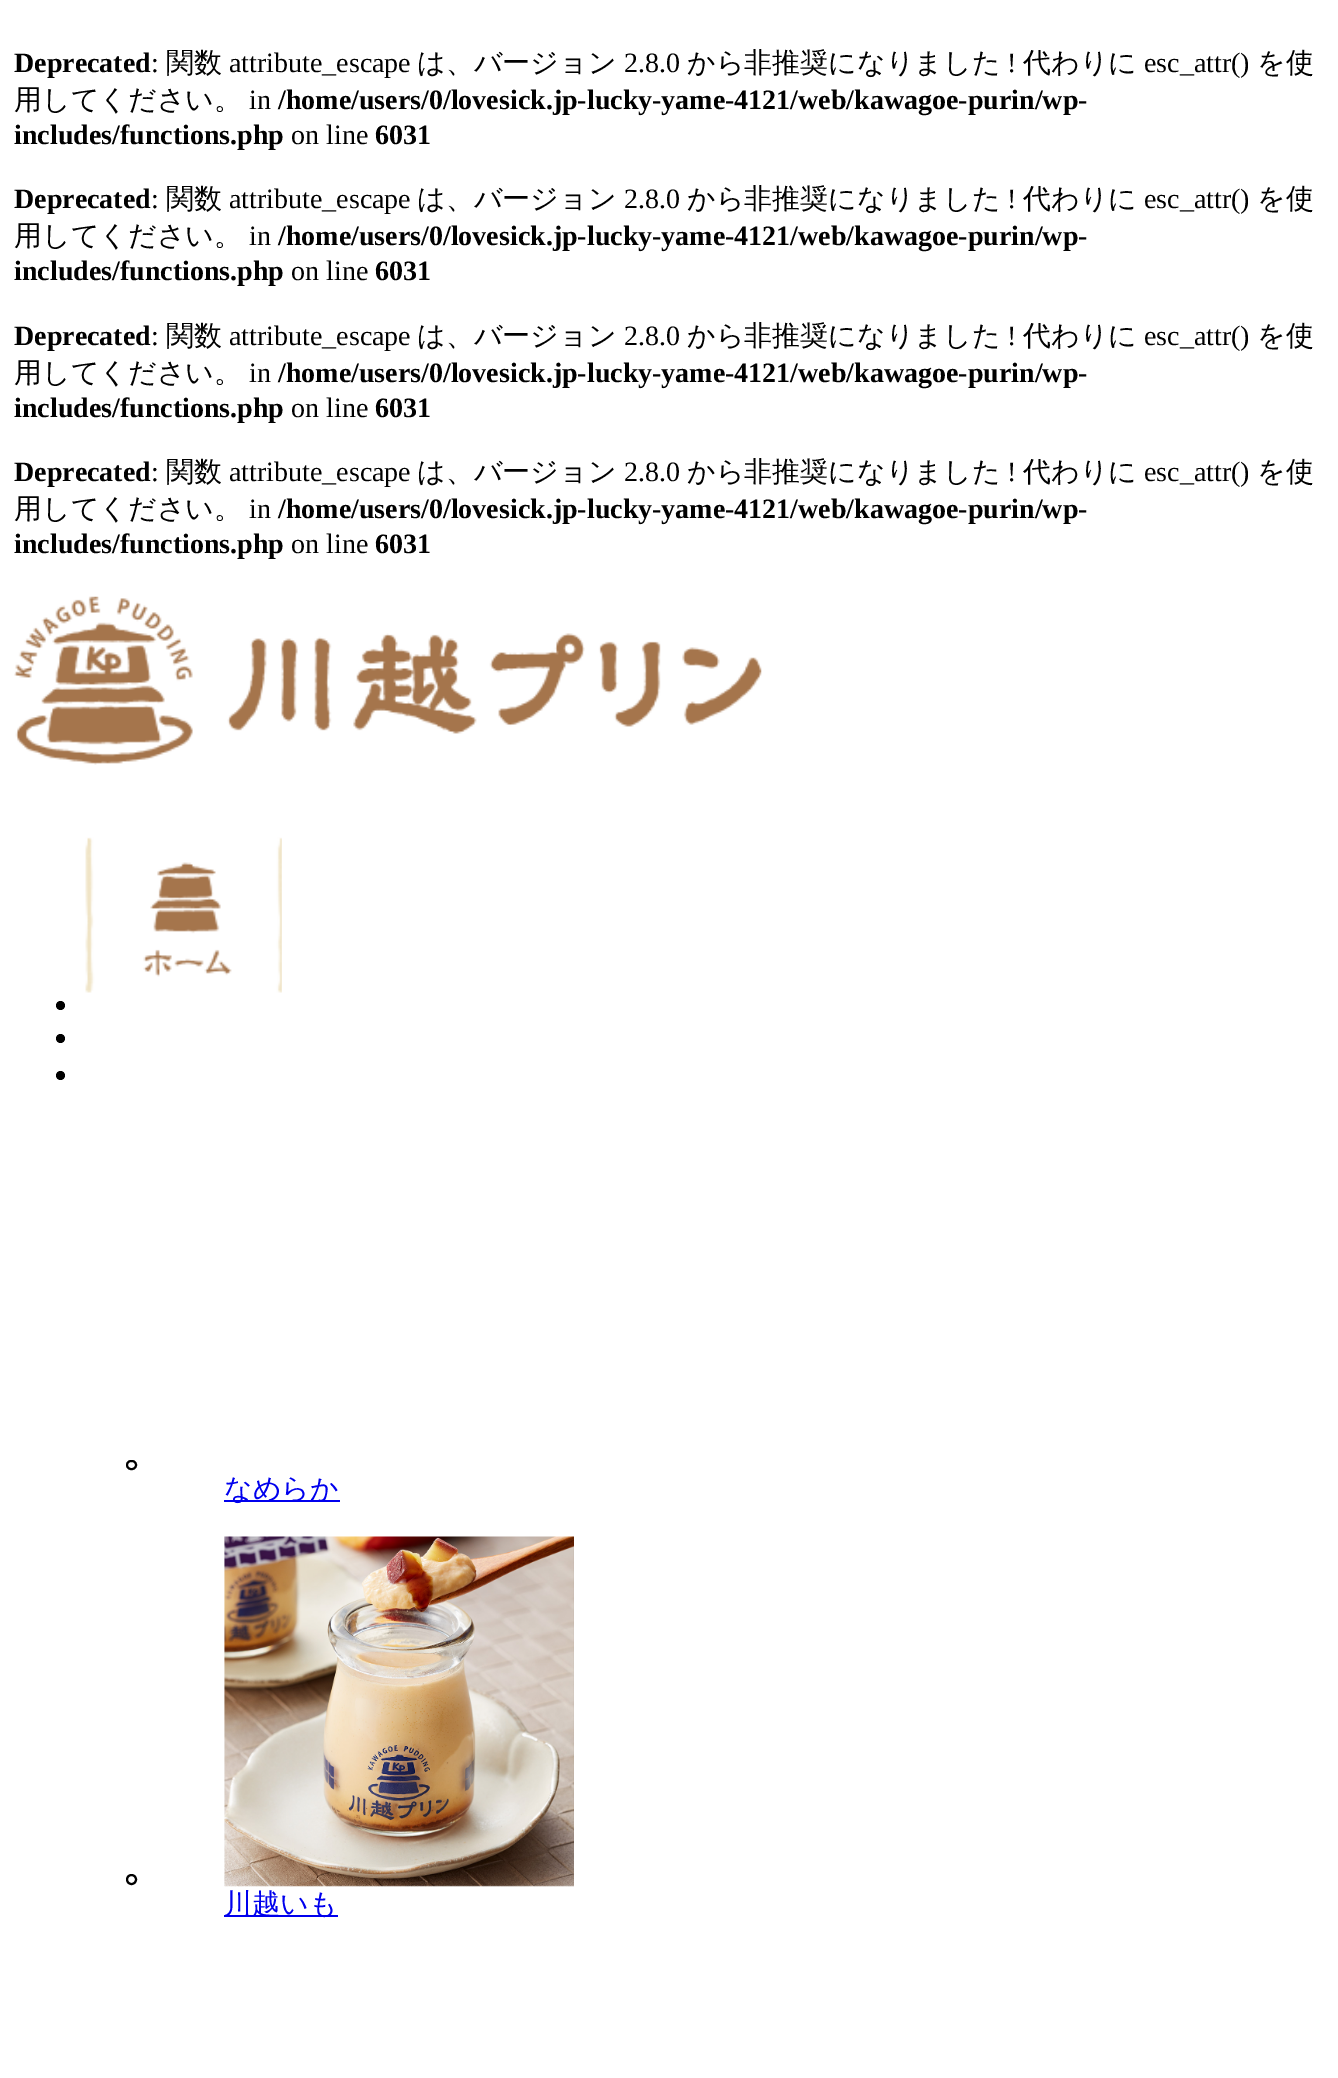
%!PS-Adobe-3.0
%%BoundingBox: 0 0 1338 2078
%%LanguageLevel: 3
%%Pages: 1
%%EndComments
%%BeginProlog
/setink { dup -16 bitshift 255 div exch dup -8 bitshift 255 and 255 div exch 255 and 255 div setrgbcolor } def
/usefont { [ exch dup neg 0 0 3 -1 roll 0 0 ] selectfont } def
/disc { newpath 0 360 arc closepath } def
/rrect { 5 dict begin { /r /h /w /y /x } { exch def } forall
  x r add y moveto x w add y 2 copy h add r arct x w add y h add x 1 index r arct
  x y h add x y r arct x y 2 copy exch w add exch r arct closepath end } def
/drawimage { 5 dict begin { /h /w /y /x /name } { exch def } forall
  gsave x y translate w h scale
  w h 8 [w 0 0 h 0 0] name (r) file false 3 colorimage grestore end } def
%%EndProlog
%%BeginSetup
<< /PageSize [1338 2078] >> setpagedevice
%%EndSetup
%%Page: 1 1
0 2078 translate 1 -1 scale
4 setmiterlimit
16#FFFFFF setink
0 0 1338 2078 rectfill
/LiberationSerif-Bold 28 usefont
16#000000 setink
14 72 moveto (Deprecated) show
/LiberationSerif-Regular 28 usefont
151 72 moveto (:) show
/WenQuanYiZenHei-Medium 28 usefont
166 72 moveto (関数) show
/LiberationSerif-Regular 28 usefont
229 72 moveto (attribute_escape) show
/WenQuanYiZenHei-Medium 28 usefont
417 72 moveto (は、バージョン) show
/LiberationSerif-Regular 28 usefont
624 72 moveto (2.8.0) show
/WenQuanYiZenHei-Medium 28 usefont
687 72 moveto (から非推奨になりました) show
/LiberationSerif-Regular 28 usefont
1007 72 moveto (!) show
/WenQuanYiZenHei-Medium 28 usefont
1023 72 moveto (代わりに) show
/LiberationSerif-Regular 28 usefont
1144 72 moveto (esc_attr\(\)) show
/WenQuanYiZenHei-Medium 28 usefont
1257 72 moveto (を使) show
14 109 moveto (用してください。) show
/LiberationSerif-Regular 28 usefont
249 109 moveto (in) show
/LiberationSerif-Bold 28 usefont
278 109 moveto (/home/users/0/lovesick.jp-lucky-yame-4121/web/kawagoe-purin/wp-) show
14 144 moveto (includes/functions.php) show
/LiberationSerif-Regular 28 usefont
291 144 moveto (on line) show
/LiberationSerif-Bold 28 usefont
375 144 moveto (6031) show
14 208 moveto (Deprecated) show
/LiberationSerif-Regular 28 usefont
151 208 moveto (:) show
/WenQuanYiZenHei-Medium 28 usefont
166 208 moveto (関数) show
/LiberationSerif-Regular 28 usefont
229 208 moveto (attribute_escape) show
/WenQuanYiZenHei-Medium 28 usefont
417 208 moveto (は、バージョン) show
/LiberationSerif-Regular 28 usefont
624 208 moveto (2.8.0) show
/WenQuanYiZenHei-Medium 28 usefont
687 208 moveto (から非推奨になりました) show
/LiberationSerif-Regular 28 usefont
1007 208 moveto (!) show
/WenQuanYiZenHei-Medium 28 usefont
1023 208 moveto (代わりに) show
/LiberationSerif-Regular 28 usefont
1144 208 moveto (esc_attr\(\)) show
/WenQuanYiZenHei-Medium 28 usefont
1257 208 moveto (を使) show
14 245 moveto (用してください。) show
/LiberationSerif-Regular 28 usefont
249 245 moveto (in) show
/LiberationSerif-Bold 28 usefont
278 245 moveto (/home/users/0/lovesick.jp-lucky-yame-4121/web/kawagoe-purin/wp-) show
14 280 moveto (includes/functions.php) show
/LiberationSerif-Regular 28 usefont
291 280 moveto (on line) show
/LiberationSerif-Bold 28 usefont
375 280 moveto (6031) show
14 345 moveto (Deprecated) show
/LiberationSerif-Regular 28 usefont
151 345 moveto (:) show
/WenQuanYiZenHei-Medium 28 usefont
166 345 moveto (関数) show
/LiberationSerif-Regular 28 usefont
229 345 moveto (attribute_escape) show
/WenQuanYiZenHei-Medium 28 usefont
417 345 moveto (は、バージョン) show
/LiberationSerif-Regular 28 usefont
624 345 moveto (2.8.0) show
/WenQuanYiZenHei-Medium 28 usefont
687 345 moveto (から非推奨になりました) show
/LiberationSerif-Regular 28 usefont
1007 345 moveto (!) show
/WenQuanYiZenHei-Medium 28 usefont
1023 345 moveto (代わりに) show
/LiberationSerif-Regular 28 usefont
1144 345 moveto (esc_attr\(\)) show
/WenQuanYiZenHei-Medium 28 usefont
1257 345 moveto (を使) show
14 382 moveto (用してください。) show
/LiberationSerif-Regular 28 usefont
249 382 moveto (in) show
/LiberationSerif-Bold 28 usefont
278 382 moveto (/home/users/0/lovesick.jp-lucky-yame-4121/web/kawagoe-purin/wp-) show
14 417 moveto (includes/functions.php) show
/LiberationSerif-Regular 28 usefont
291 417 moveto (on line) show
/LiberationSerif-Bold 28 usefont
375 417 moveto (6031) show
14 481 moveto (Deprecated) show
/LiberationSerif-Regular 28 usefont
151 481 moveto (:) show
/WenQuanYiZenHei-Medium 28 usefont
166 481 moveto (関数) show
/LiberationSerif-Regular 28 usefont
229 481 moveto (attribute_escape) show
/WenQuanYiZenHei-Medium 28 usefont
417 481 moveto (は、バージョン) show
/LiberationSerif-Regular 28 usefont
624 481 moveto (2.8.0) show
/WenQuanYiZenHei-Medium 28 usefont
687 481 moveto (から非推奨になりました) show
/LiberationSerif-Regular 28 usefont
1007 481 moveto (!) show
/WenQuanYiZenHei-Medium 28 usefont
1023 481 moveto (代わりに) show
/LiberationSerif-Regular 28 usefont
1144 481 moveto (esc_attr\(\)) show
/WenQuanYiZenHei-Medium 28 usefont
1257 481 moveto (を使) show
14 518 moveto (用してください。) show
/LiberationSerif-Regular 28 usefont
249 518 moveto (in) show
/LiberationSerif-Bold 28 usefont
278 518 moveto (/home/users/0/lovesick.jp-lucky-yame-4121/web/kawagoe-purin/wp-) show
14 553 moveto (includes/functions.php) show
/LiberationSerif-Regular 28 usefont
291 553 moveto (on line) show
/LiberationSerif-Bold 28 usefont
375 553 moveto (6031) show
(img1.raw) 14 596 748 169 drawimage
(img2.raw) 85 837 197 156 drawimage
60.5 1005.5 4.5 disc fill
60.5 1038.5 4.5 disc fill
60.5 1075.5 4.5 disc fill
2 setlinewidth
127 1461 9 8 4 rrect stroke
16#0000EE setink
224 1500 116 2 rectfill
/WenQuanYiZenHei-Medium 28 usefont
224 1498 moveto (なめらか) show
16#000000 setink
131.5 1879.5 4.5 disc stroke
(img3.raw) 224 1536 350 351 drawimage
16#0000EE setink
224 1915 114 2 rectfill
224 1913 moveto (川越いも) show
showpage
%%EOF
